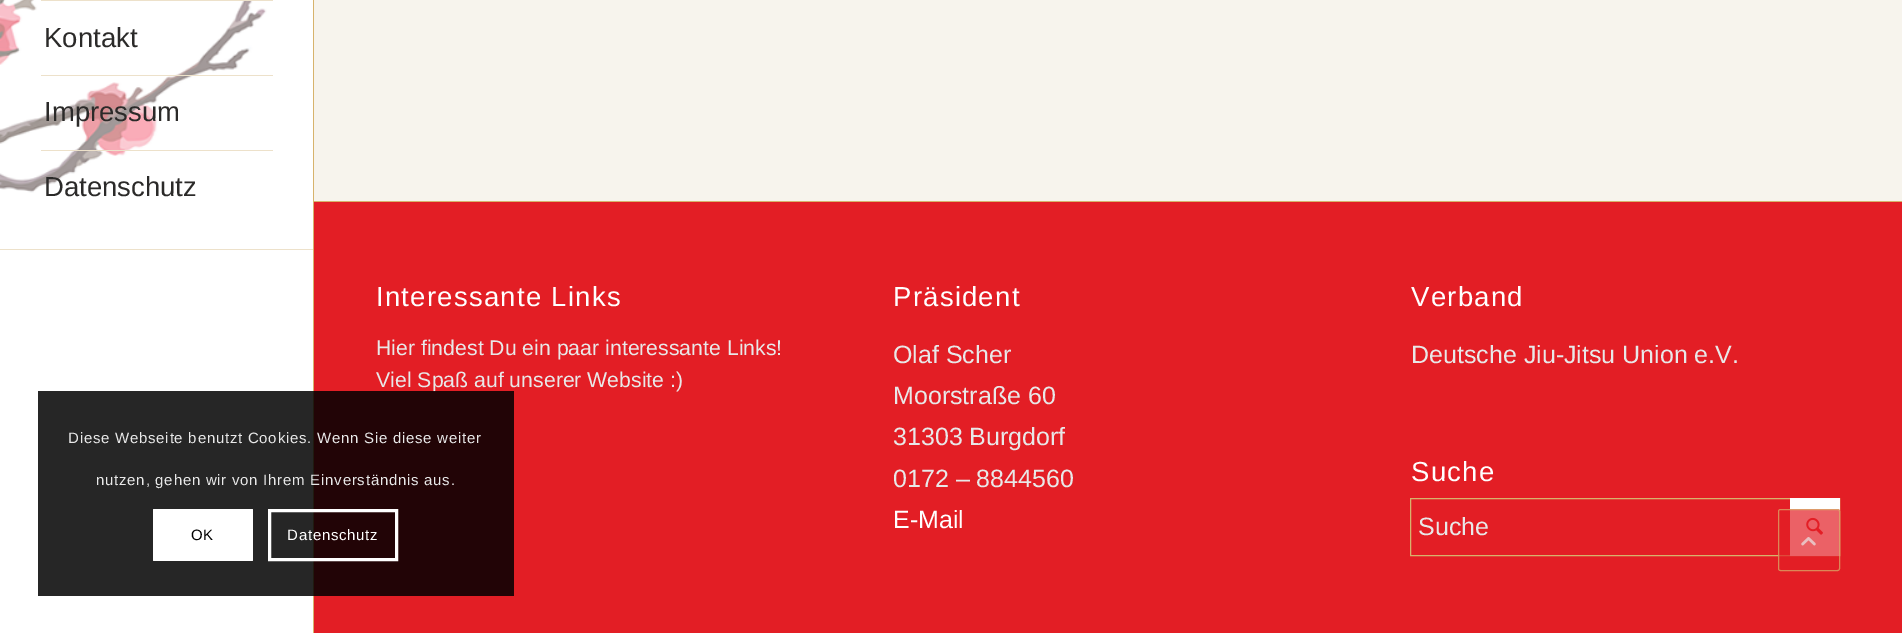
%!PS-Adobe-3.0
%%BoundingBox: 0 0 1902 633
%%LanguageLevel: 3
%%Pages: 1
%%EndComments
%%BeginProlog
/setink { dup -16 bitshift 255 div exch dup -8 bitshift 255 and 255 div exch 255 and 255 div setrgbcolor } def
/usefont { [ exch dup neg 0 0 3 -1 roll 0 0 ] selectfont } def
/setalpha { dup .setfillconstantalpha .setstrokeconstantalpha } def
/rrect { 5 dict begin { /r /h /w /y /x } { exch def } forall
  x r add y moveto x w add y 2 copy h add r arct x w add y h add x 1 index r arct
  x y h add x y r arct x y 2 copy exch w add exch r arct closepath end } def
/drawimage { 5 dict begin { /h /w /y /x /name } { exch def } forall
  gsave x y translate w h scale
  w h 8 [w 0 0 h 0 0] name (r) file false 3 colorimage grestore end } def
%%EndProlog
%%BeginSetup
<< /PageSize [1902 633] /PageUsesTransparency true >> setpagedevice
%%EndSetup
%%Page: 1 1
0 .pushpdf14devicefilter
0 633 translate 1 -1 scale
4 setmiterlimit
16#FFFFFF setink
0 0 1902 633 rectfill
(img1.raw) 0 0 267 193 drawimage
[
    [0 249 313 1 16#EDE1CA]
    [41 0 232 1 16#EDE1CA]
    [41 75 232 1 16#EDE1CA]
] { aload pop setink rectfill } forall
/LiberationSans-Regular 27.5 usefont
16#2B2A29 setink
44 47 moveto (Kontakt) show
16#EDE1CA setink
41 150 232 1 rectfill
16#2B2A29 setink
44 121 moveto (Impressum) show
44 196 moveto (Datenschutz) show
[
    [313 0 1 633 16#D7B36C]
    [314 0 1588 201 16#F7F4ED]
    [314 202 1588 431 16#E31E25]
    [314 201 1588 1 16#D7B36C]
] { aload pop setink rectfill } forall
16#FFFFFF setink
376 306 moveto 1.25 0 (Interessante Links) ashow
/LiberationSans-Regular 21.25 usefont
16#E8E8E8 setink
376 355 moveto (Hier findest Du ein paar interessante Links!) show
376 387 moveto (Viel Spaß auf unserer Website :\)) show
/LiberationSans-Regular 27.5 usefont
16#FFFFFF setink
893 306 moveto 1.25 0 (Präsident) ashow
/LiberationSans-Regular 25 usefont
16#E8E8E8 setink
[
    [(Olaf Scher) 893 363]
    [(Moorstraße 60) 893 404]
    [(31303 Burgdorf) 893 445]
    [(0172 – 8844560) 893 487]
] { aload pop moveto show } forall
16#FFFFFF setink
893 528 moveto (E-Mail) show
/LiberationSans-Regular 27.5 usefont
1411 306 moveto 1.25 0 (Verband) ashow
/LiberationSans-Regular 25 usefont
16#E8E8E8 setink
1411 363 moveto (Deutsche Jiu-Jitsu Union e.V.) show
/LiberationSans-Regular 27.5 usefont
16#FFFFFF setink
1411 481 moveto 1.25 0 (Suche) ashow
16#D7B36C setink
1410.5 498.5 429 57 rectstroke
/LiberationSans-Regular 25 usefont
16#E8E8E8 setink
1418 535 moveto (Suche) show
16#FFFFFF setink
1790 498 50 58 rectfill
(img2.raw) 1806 517 17 18 drawimage
0.85 setalpha
16#000000 setink
38 391 476 205 rectfill
/LiberationSans-Regular 15 usefont
1 setalpha
16#E8E8E8 setink
68 443 moveto 0.75 0 (Diese Webseite benutzt Cookies. Wenn Sie diese weiter) ashow
96 485 moveto 0.75 0 (nutzen, gehen wir von Ihrem Einverständnis aus.) ashow
16#FFFFFF setink
153 509 100 52 1 rrect fill
16#000000 setink
191 540 moveto 0.75 0 (OK) ashow
16#FFFFFF setink
3 setlinewidth
269.5 510.5 127 49 rectstroke
287 540 moveto 0.75 0 (Datenschutz) ashow
0.7 setalpha
16#E31E25 setink
1778 509 62 62 2.5 rrect fill
16#D7B36C setink
1 setlinewidth
1778.5 509.5 61 61 2 rrect stroke
1 setalpha
(img3.raw) 1801 537 15 9 drawimage
.poppdf14devicefilter showpage
%%EOF
